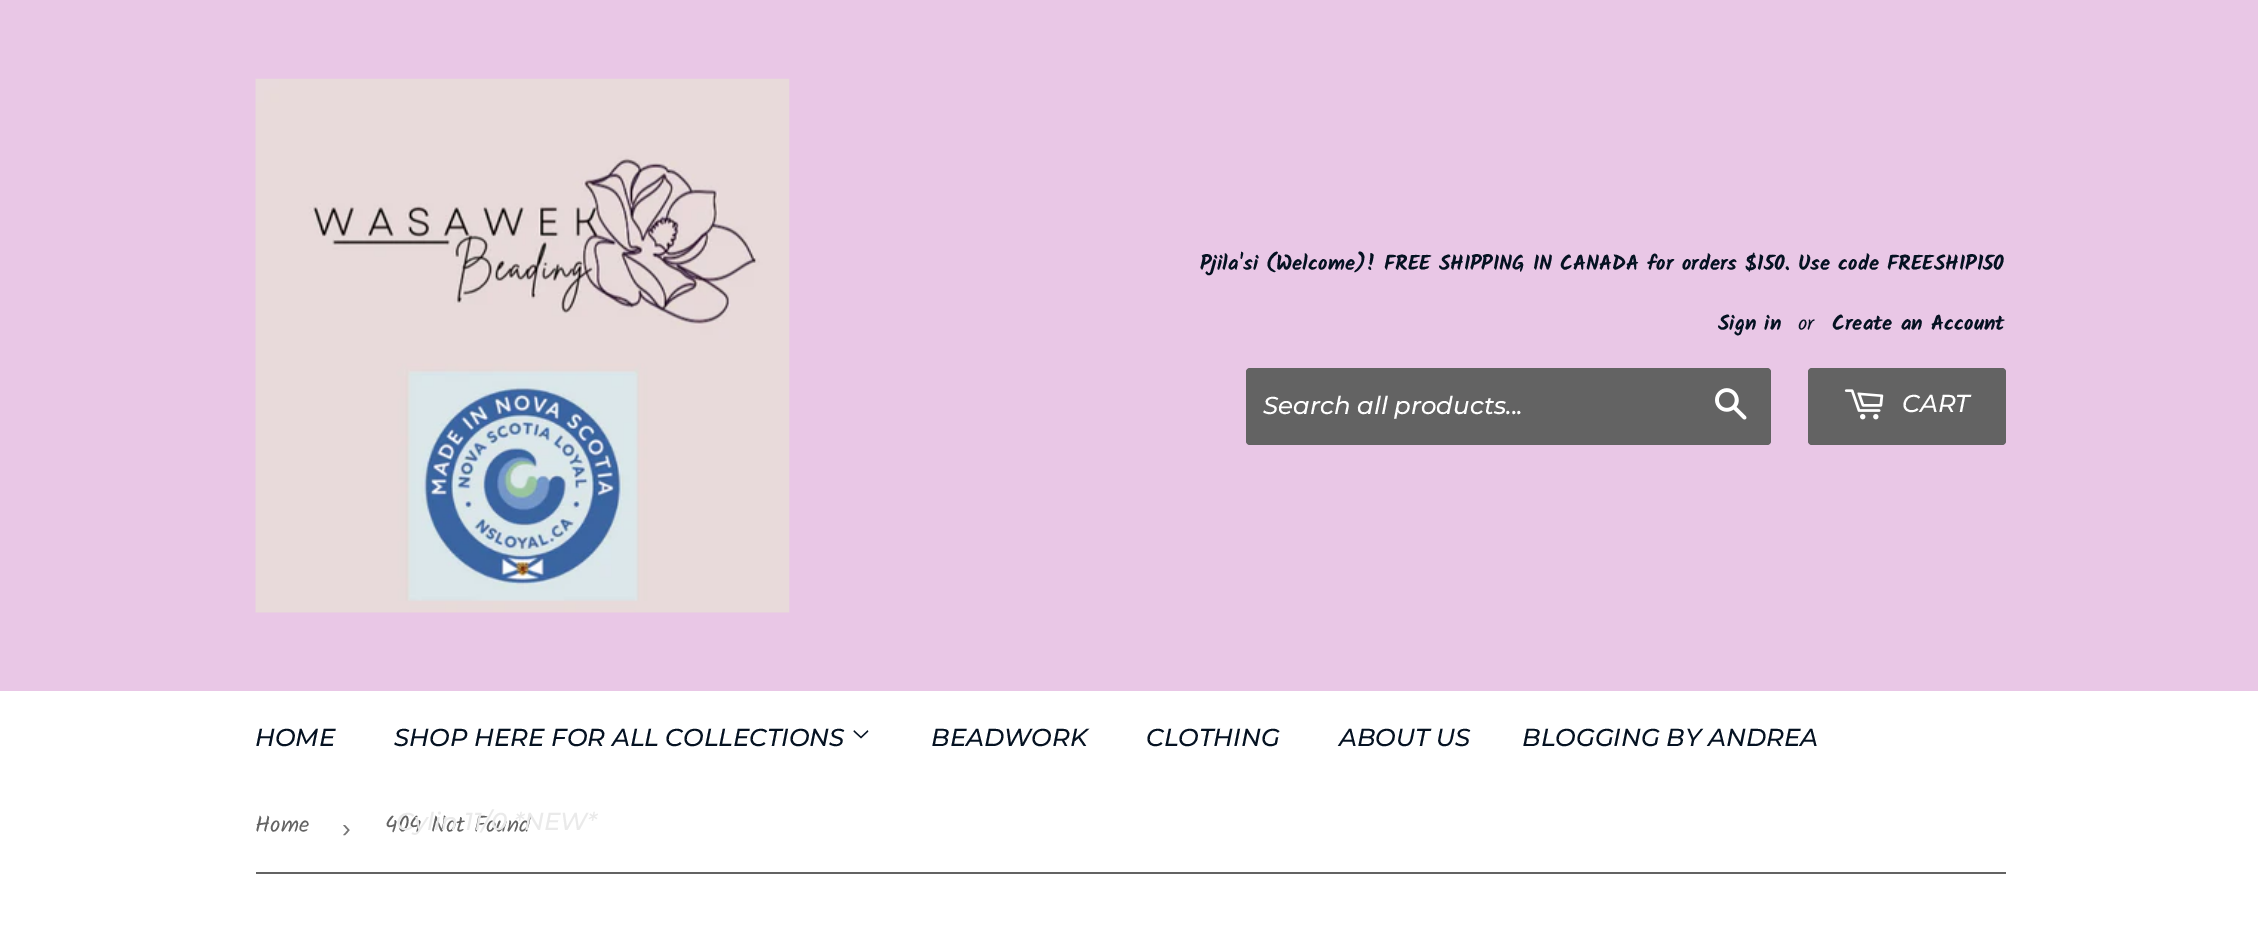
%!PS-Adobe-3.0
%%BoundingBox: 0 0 2258 937
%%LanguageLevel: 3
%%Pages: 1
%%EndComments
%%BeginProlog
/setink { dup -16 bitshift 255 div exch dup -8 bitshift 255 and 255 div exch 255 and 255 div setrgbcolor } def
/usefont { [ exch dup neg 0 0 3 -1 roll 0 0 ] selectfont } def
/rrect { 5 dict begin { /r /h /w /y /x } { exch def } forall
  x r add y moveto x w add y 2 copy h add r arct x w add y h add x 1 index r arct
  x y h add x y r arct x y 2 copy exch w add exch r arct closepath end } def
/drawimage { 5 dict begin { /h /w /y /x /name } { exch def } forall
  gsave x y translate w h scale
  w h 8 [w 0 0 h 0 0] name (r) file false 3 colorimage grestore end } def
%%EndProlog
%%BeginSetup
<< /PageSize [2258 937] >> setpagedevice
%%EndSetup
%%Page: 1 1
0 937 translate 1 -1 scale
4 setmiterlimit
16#FFFFFF setink
0 0 2258 937 rectfill
16#E9C7E6 setink
0 0 2258 691 rectfill
(img1.raw) 255 78 535 535 drawimage
/Kalam-Bold 20.8 usefont
16#051222 setink
1200 270 moveto (Pjila'si \(Welcome\)! FREE SHIPPING IN CANADA for orders $150. Use code FREESHIP150) show
1718 330 moveto (Sign in) show
/Kalam-Regular 20.8 usefont
1798 330 moveto (or) show
/Kalam-Bold 20.8 usefont
1832 330 moveto (Create an Account) show
16#636363 setink
1246 368 525 77 4 rrect fill
/Montserrat-MediumItalic 24.5 usefont
16#FFFFFF setink
1263 414 moveto (Search all products...) show
(img2.raw) 1715 388 32 32 drawimage
16#636363 setink
1808 368 198 77 4 rrect fill
(img3.raw) 1844 389 40 31 drawimage
16#FFFFFF setink
1902 412 moveto (CART) show
16#051222 setink
255 746 moveto (HOME) show
394 746 moveto (SHOP HERE FOR ALL COLLECTIONS) show
(img4.raw) 853 730 16 9 drawimage
/Kalam-Regular 22.75 usefont
16#636363 setink
385 832 moveto (404 Not Found) show
/Montserrat-MediumItalic 24.5 usefont
16#EAEAEA setink
396 830 moveto (Cylin 11/0 *NEW*) show
16#051222 setink
[
    [(BEADWORK) 931 746]
    [(CLOTHING) 1146 746]
    [(ABOUT US) 1339 746]
    [(BLOGGING BY ANDREA) 1522 746]
] { aload pop moveto show } forall
16#636363 setink
256 872 1750 2 rectfill
/Kalam-Regular 22.75 usefont
255 832 moveto (Home) show
/LiberationSans-Regular 26 usefont
16#767676 setink
342 837 moveto (›) show
showpage
%%EOF
